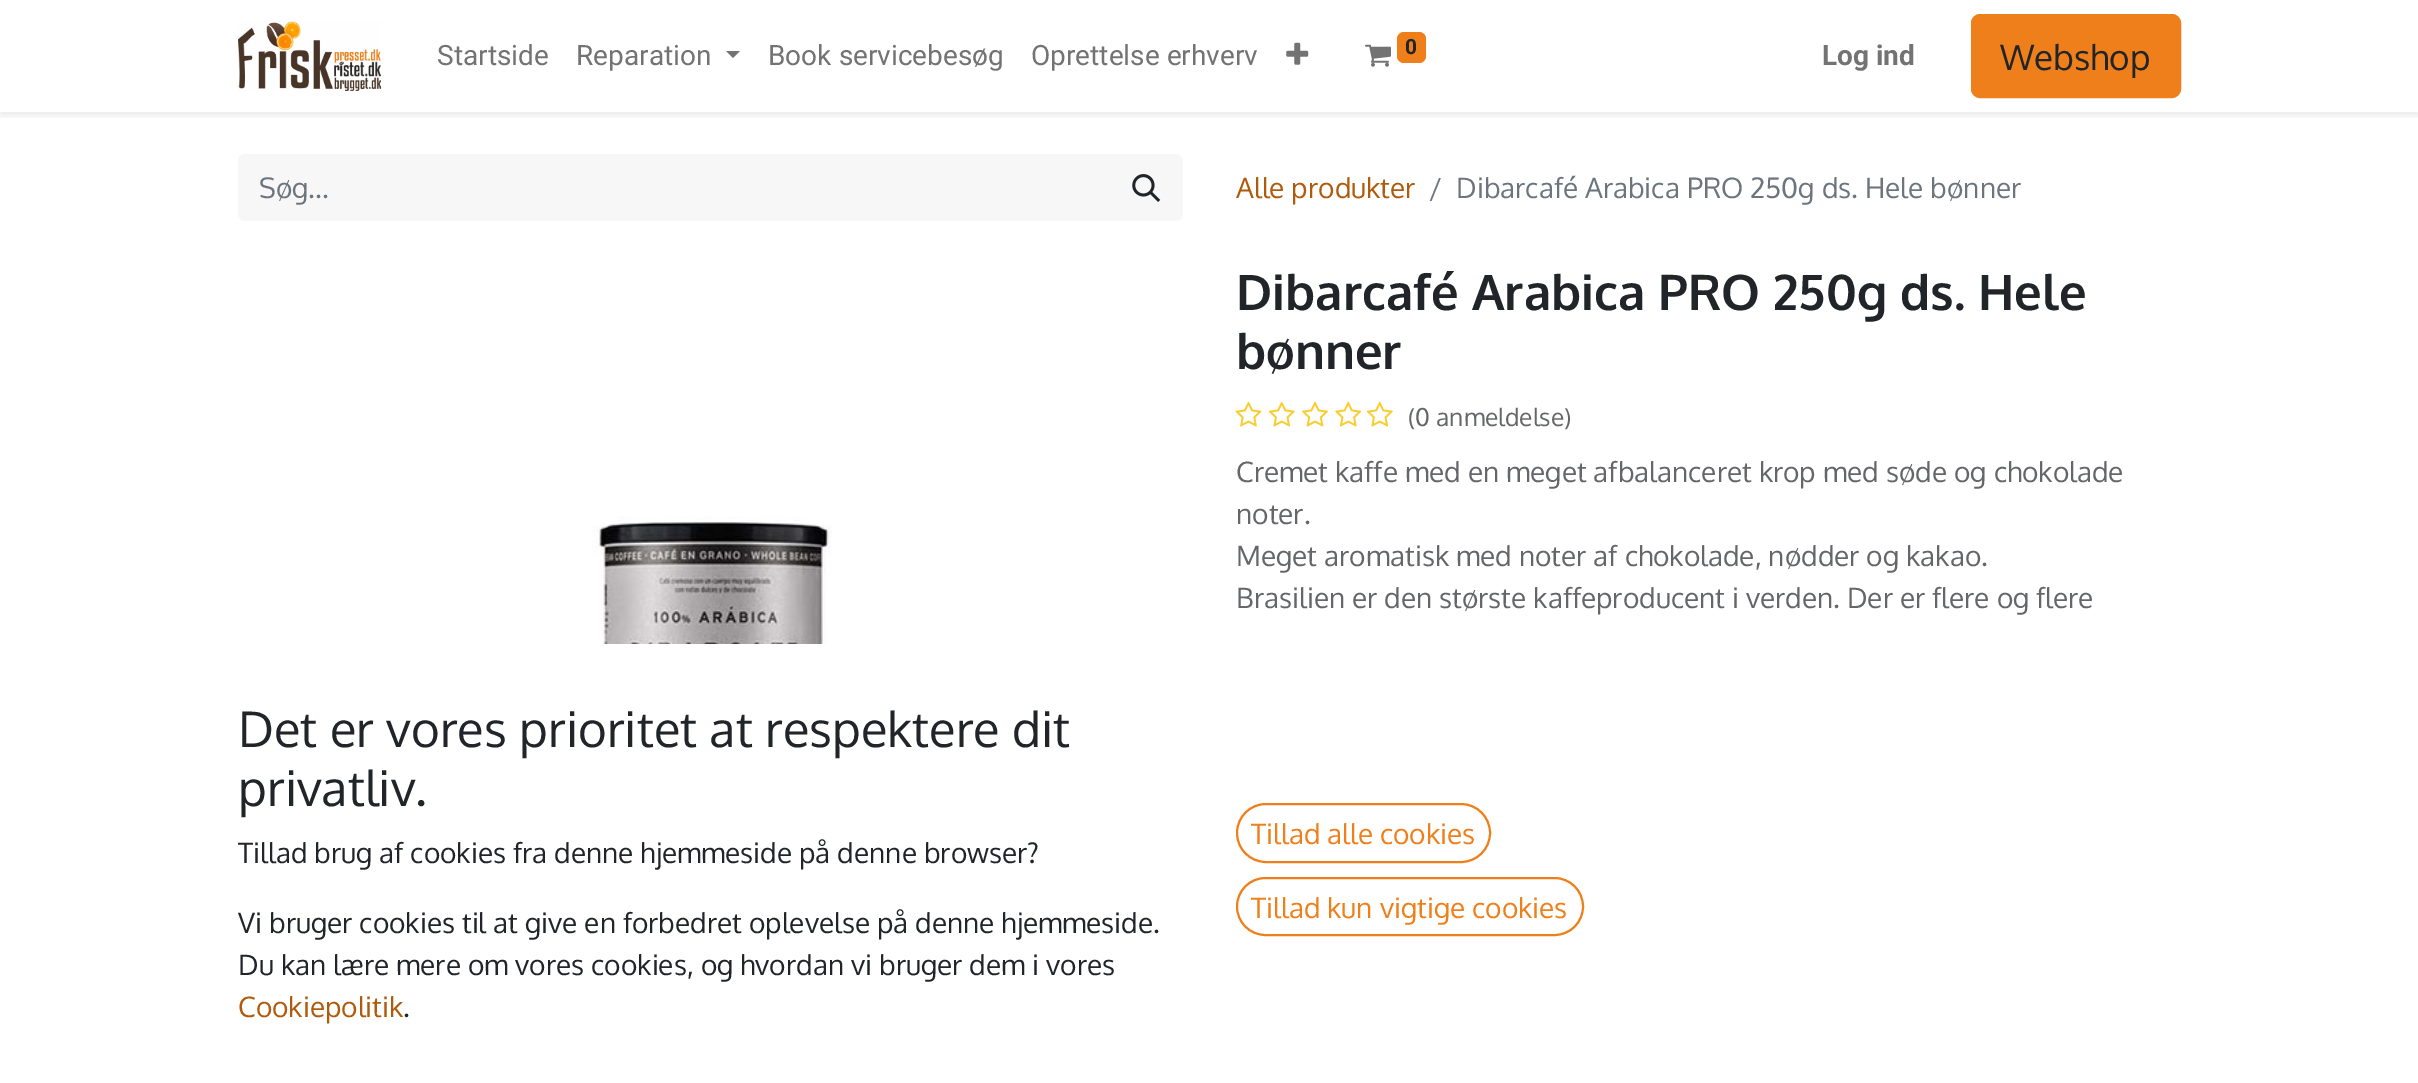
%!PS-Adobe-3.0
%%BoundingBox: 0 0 2418 1083
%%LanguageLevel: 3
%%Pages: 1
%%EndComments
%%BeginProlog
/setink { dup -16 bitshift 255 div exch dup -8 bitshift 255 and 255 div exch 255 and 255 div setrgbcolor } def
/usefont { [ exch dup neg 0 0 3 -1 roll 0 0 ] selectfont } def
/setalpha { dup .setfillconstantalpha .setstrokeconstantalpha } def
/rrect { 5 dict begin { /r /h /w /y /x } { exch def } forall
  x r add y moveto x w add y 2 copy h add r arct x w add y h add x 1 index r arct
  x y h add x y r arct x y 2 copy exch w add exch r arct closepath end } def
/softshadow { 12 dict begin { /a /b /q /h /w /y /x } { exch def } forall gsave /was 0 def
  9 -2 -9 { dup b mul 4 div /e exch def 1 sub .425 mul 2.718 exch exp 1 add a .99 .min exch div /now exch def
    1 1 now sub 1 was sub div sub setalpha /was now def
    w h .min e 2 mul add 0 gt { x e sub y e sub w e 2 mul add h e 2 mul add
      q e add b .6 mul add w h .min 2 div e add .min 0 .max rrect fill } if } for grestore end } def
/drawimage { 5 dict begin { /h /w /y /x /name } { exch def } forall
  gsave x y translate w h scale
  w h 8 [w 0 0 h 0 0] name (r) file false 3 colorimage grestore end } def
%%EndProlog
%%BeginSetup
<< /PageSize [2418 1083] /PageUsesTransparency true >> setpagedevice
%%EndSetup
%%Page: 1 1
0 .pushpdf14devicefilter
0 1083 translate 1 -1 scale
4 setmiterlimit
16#FFFFFF setink
0 0 2418 1083 rectfill
gsave
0 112 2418 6 rectclip
16#000000 setink
0 4 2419 112 0 3.5 0.07 softshadow
grestore
(img1.raw) 238 21 143 70 drawimage
/Roboto-Regular 28 usefont
16#737373 setink
437 65 moveto (Startside) show
576 65 moveto (Reparation) show
726 51 moveto 740 51 lineto 733 58 lineto closepath fill
768 65 moveto (Book servicebesøg) show
1031 65 moveto (Oprettelse erhverv) show
(img2.raw) 1286 42 23 23 drawimage
(img3.raw) 1365 44 26 23 drawimage
16#EF7F1A setink
1397 32 29 31 7 rrect fill
/Roboto-Bold 21 usefont
16#212529 setink
1405 54 moveto (0) show
/Roboto-Bold 28 usefont
16#737373 setink
1822 65 moveto (Log ind) show
16#EF7F1A setink
1972 15 208 82 8 rrect gsave fill grestore
2 setlinewidth
stroke
/Oxygen-Regular 35 usefont
16#212529 setink
2000 70 moveto (Webshop) show
16#F8F7F7 setink
245 154 moveto 1111 154 lineto 1111 221 lineto 245 221 lineto 241 221 238 218 238 214 curveto 238 161 lineto 238 157 241 154 245 154 curveto closepath fill
/Oxygen-Regular 28 usefont
16#6C757D setink
259 198 moveto (Søg...) show
16#F8F7F7 setink
1110 154 moveto 1176 154 lineto 1180 154 1183 157 1183 161 curveto 1183 214 lineto 1183 218 1180 221 1176 221 curveto 1110 221 lineto closepath fill
(img4.raw) 1132 174 29 28 drawimage
16#B05A0C setink
1236 198 moveto (Alle produkter) show
16#6C757D setink
1429 198 moveto (/) show
1456 198 moveto (Dibarcafé Arabica PRO 250g ds. Hele bønner) show
(img5.raw) 592 516 240 128 drawimage
/Oxygen-Bold 49 usefont
16#212529 setink
1236 310 moveto (Dibarcafé Arabica PRO 250g ds. Hele) show
1236 369 moveto (bønner) show
(img6.raw) 1235 401 27 26 drawimage
(img7.raw) 1268 401 27 26 drawimage
(img8.raw) 1302 401 26 26 drawimage
(img9.raw) 1335 401 27 26 drawimage
(img7.raw) 1366 401 27 26 drawimage
/Oxygen-Regular 24.5 usefont
16#646669 setink
1408 426 moveto (\(0 anmeldelse\)) show
/Oxygen-Regular 28 usefont
[
    [(Cremet kaffe med en meget afbalanceret krop med søde og chokolade) 1236 482]
    [(noter.) 1236 524]
    [(Meget aromatisk med noter af chokolade, nødder og kakao.) 1236 566]
    [(Brasilien er den største kaffeproducent i verden. Der er flere og flere) 1236 608]
] { aload pop moveto show } forall
/Oxygen-Regular 49 usefont
16#212529 setink
238 747 moveto (Det er vores prioritet at respektere dit) show
238 806 moveto (privatliv.) show
/Oxygen-Regular 28 usefont
[
    [(Tillad brug af cookies fra denne hjemmeside på denne browser?) 238 863]
    [(Vi bruger cookies til at give en forbedret oplevelse på denne hjemmeside.) 238 933]
    [(Du kan lære mere om vores cookies, og hvordan vi bruger dem i vores) 238 975]
] { aload pop moveto show } forall
16#B05A0C setink
238 1017 moveto (Cookiepolitik) show
16#212529 setink
403 1017 moveto (.) show
16#EF7F1A setink
1237 804 253 58 29 rrect stroke
1251 844 moveto (Tillad alle cookies) show
1237 878 346 57 28.5 rrect stroke
1251 918 moveto (Tillad kun vigtige cookies) show
.poppdf14devicefilter showpage
%%EOF
